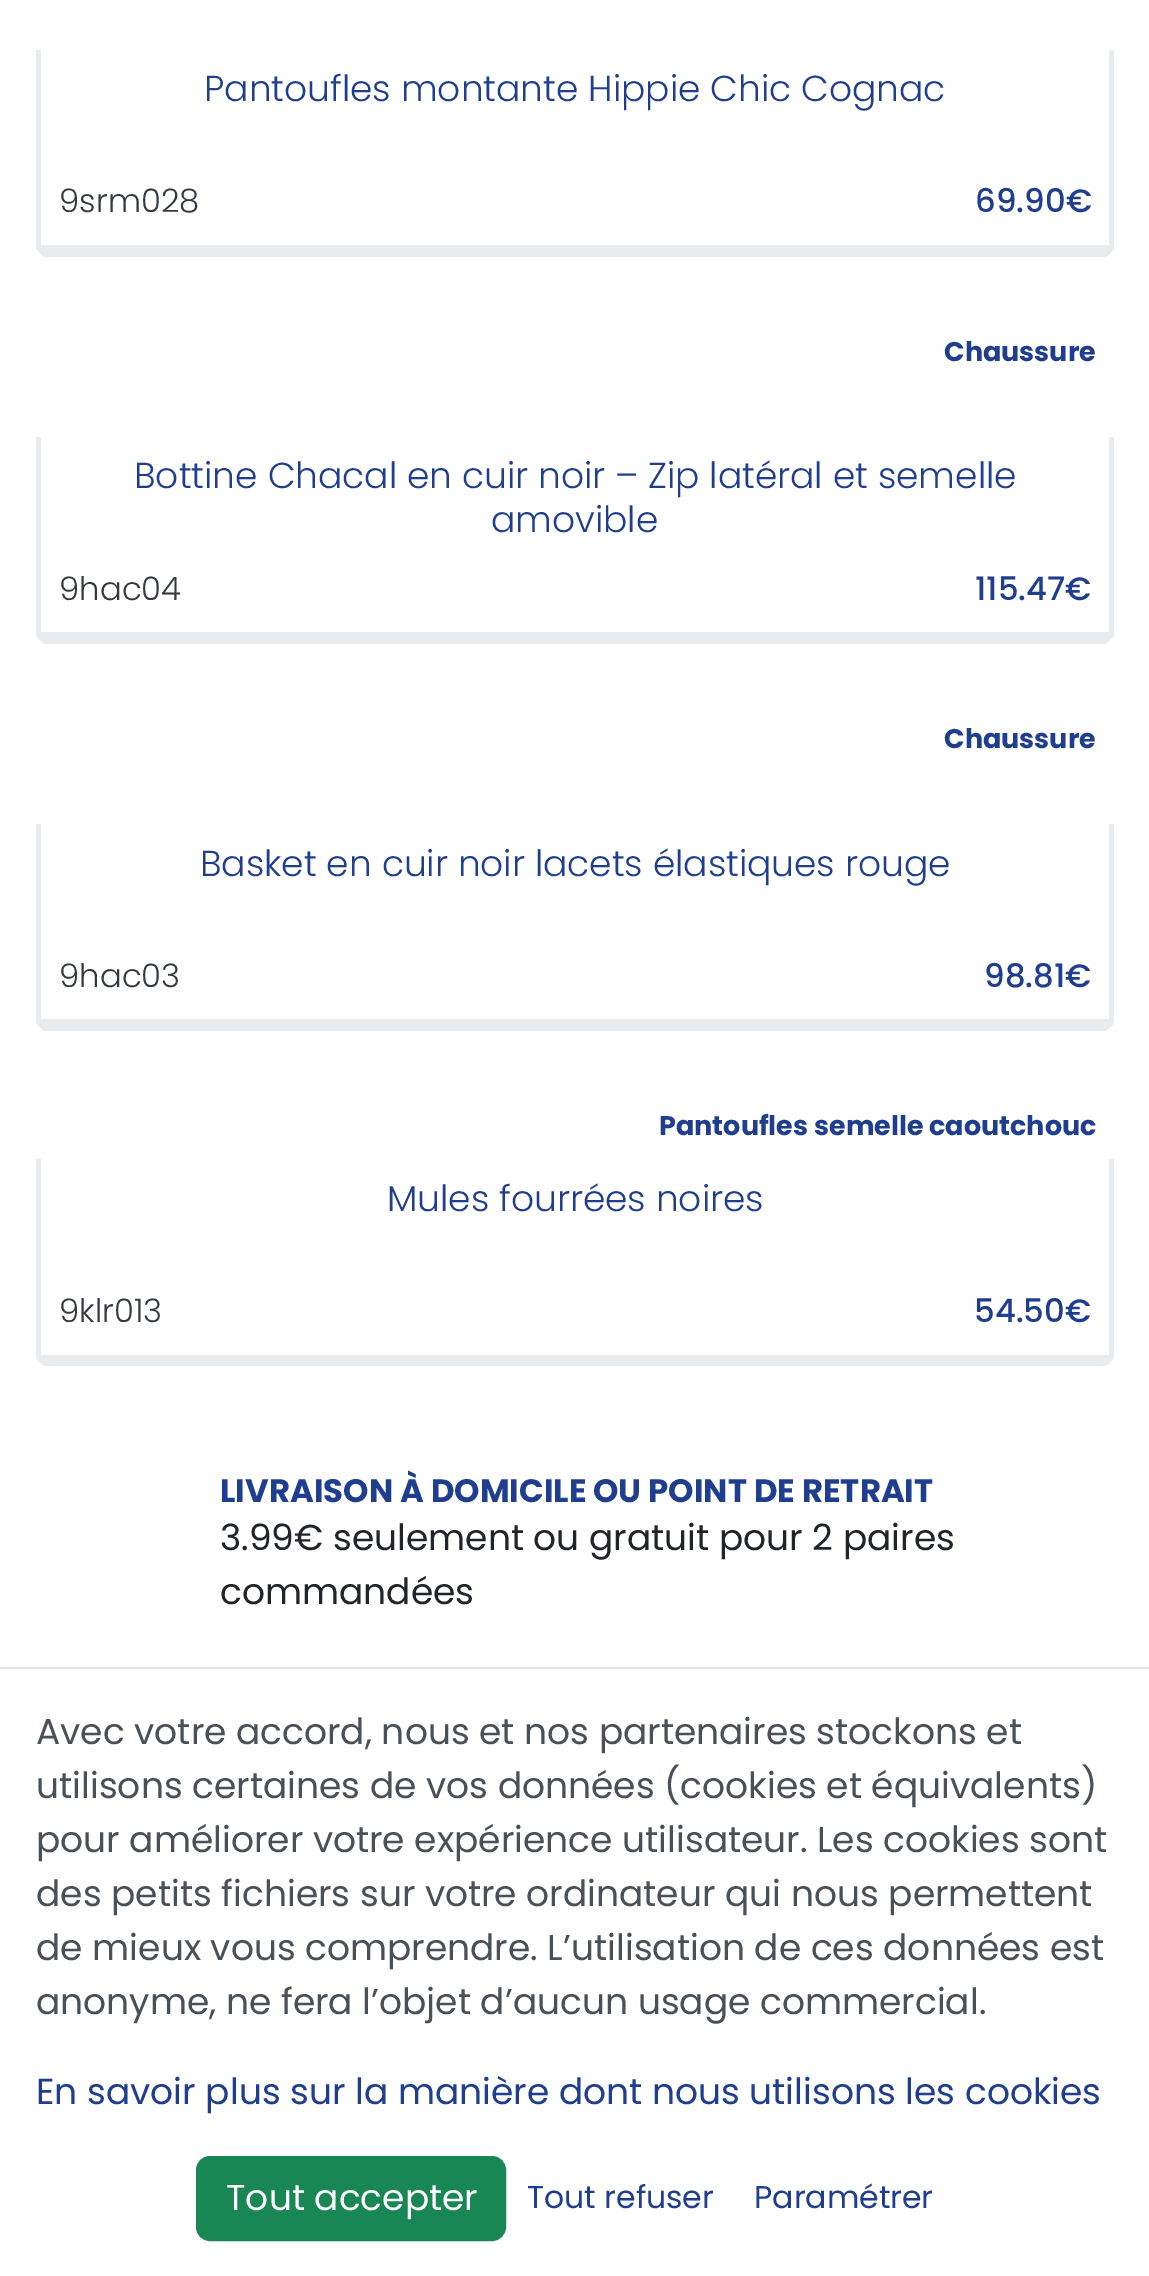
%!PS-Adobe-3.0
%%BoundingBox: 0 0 1149 2276
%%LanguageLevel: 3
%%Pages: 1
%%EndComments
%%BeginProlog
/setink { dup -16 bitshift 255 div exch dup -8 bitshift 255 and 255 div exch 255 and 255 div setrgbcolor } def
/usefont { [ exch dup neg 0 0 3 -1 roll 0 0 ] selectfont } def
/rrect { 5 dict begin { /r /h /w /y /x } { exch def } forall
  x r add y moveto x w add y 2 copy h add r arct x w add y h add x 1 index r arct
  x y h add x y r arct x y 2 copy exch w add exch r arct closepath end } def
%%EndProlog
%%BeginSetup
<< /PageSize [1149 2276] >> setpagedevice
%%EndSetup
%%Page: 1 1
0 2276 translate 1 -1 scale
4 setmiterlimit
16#FFFFFF setink
0 0 1149 2276 rectfill
gsave
36 -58 1078 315 14 rrect clip newpath
[
    [1109 50 5 207 16#E9ECEF]
    [36 245 1078 12 16#E9ECEF]
    [36 50 5 207 16#E9ECEF]
] { aload pop setink rectfill } forall
grestore
/Poppins-Light 36 usefont
16#203E90 setink
204 101 moveto (Pantoufles montante Hippie Chic Cognac) show
/Poppins-Light 32.4 usefont
16#343A40 setink
59 212 moveto (9srm028) show
/Poppins-Medium 32.4 usefont
16#203E90 setink
975 212 moveto (69.90€) show
/Poppins-Bold 27 usefont
944 361 moveto (Chaussure) show
gsave
36 329 1078 315 14 rrect clip newpath
[
    [1109 437 5 207 16#E9ECEF]
    [36 632 1078 12 16#E9ECEF]
    [36 437 5 207 16#E9ECEF]
] { aload pop setink rectfill } forall
grestore
/Poppins-Light 36 usefont
134 488 moveto (Bottine Chacal en cuir noir – Zip latéral et semelle) show
491 532 moveto (amovible) show
/Poppins-Light 32.4 usefont
16#343A40 setink
59 600 moveto (9hac04) show
/Poppins-Medium 32.4 usefont
16#203E90 setink
975 600 moveto (115.47€) show
/Poppins-Bold 27 usefont
944 748 moveto (Chaussure) show
gsave
36 716 1078 315 14 rrect clip newpath
[
    [1109 824 5 207 16#E9ECEF]
    [36 1019 1078 12 16#E9ECEF]
    [36 824 5 207 16#E9ECEF]
] { aload pop setink rectfill } forall
grestore
/Poppins-Light 36 usefont
200 876 moveto (Basket en cuir noir lacets élastiques rouge) show
/Poppins-Light 32.4 usefont
16#343A40 setink
59 987 moveto (9hac03) show
/Poppins-Medium 32.4 usefont
16#203E90 setink
984 987 moveto (98.81€) show
/Poppins-Bold 27 usefont
659 1135 moveto (Pantoufles semelle caoutchouc) show
gsave
36 1103 1078 263 14 rrect clip newpath
[
    [1109 1159 5 207 16#E9ECEF]
    [36 1355 1078 11 16#E9ECEF]
    [36 1159 5 207 16#E9ECEF]
] { aload pop setink rectfill } forall
grestore
/Poppins-Light 36 usefont
387 1211 moveto (Mules fourrées noires) show
/Poppins-Light 32.4 usefont
16#343A40 setink
59 1322 moveto (9klr013) show
/Poppins-Medium 32.4 usefont
16#203E90 setink
974 1322 moveto (54.50€) show
/Poppins-Bold 32.4 usefont
220 1502 moveto (LIVRAISON À DOMICILE OU POINT DE RETRAIT) show
/Poppins-Regular 36 usefont
16#212529 setink
220 1550 moveto (3.99€ seulement ou gratuit pour 2 paires) show
220 1604 moveto (commandées) show
16#DEE2E6 setink
0 1667 1149 2 rectfill
16#495057 setink
[
    [(Avec votre accord, nous et nos partenaires stockons et) 36 1744]
    [(utilisons certaines de vos données \(cookies et équivalents\)) 36 1798]
    [(pour améliorer votre expérience utilisateur. Les cookies sont) 36 1852]
    [(des petits fichiers sur votre ordinateur qui nous permettent) 36 1906]
    [(de mieux vous comprendre. L’utilisation de ces données est) 36 1960]
    [(anonyme, ne fera l’objet d’aucun usage commercial.) 36 2014]
] { aload pop moveto show } forall
16#203E90 setink
36 2104 moveto (En savoir plus sur la manière dont nous utilisons les cookies) show
16#198754 setink
197 2157 308 83 13 rrect gsave fill grestore
2 setlinewidth
stroke
16#FFFFFF setink
226 2210 moveto (Tout accepter) show
/Poppins-Regular 31.5 usefont
16#203E90 setink
527 2208 moveto (Tout refuser) show
754 2208 moveto (Paramétrer) show
showpage
%%EOF
